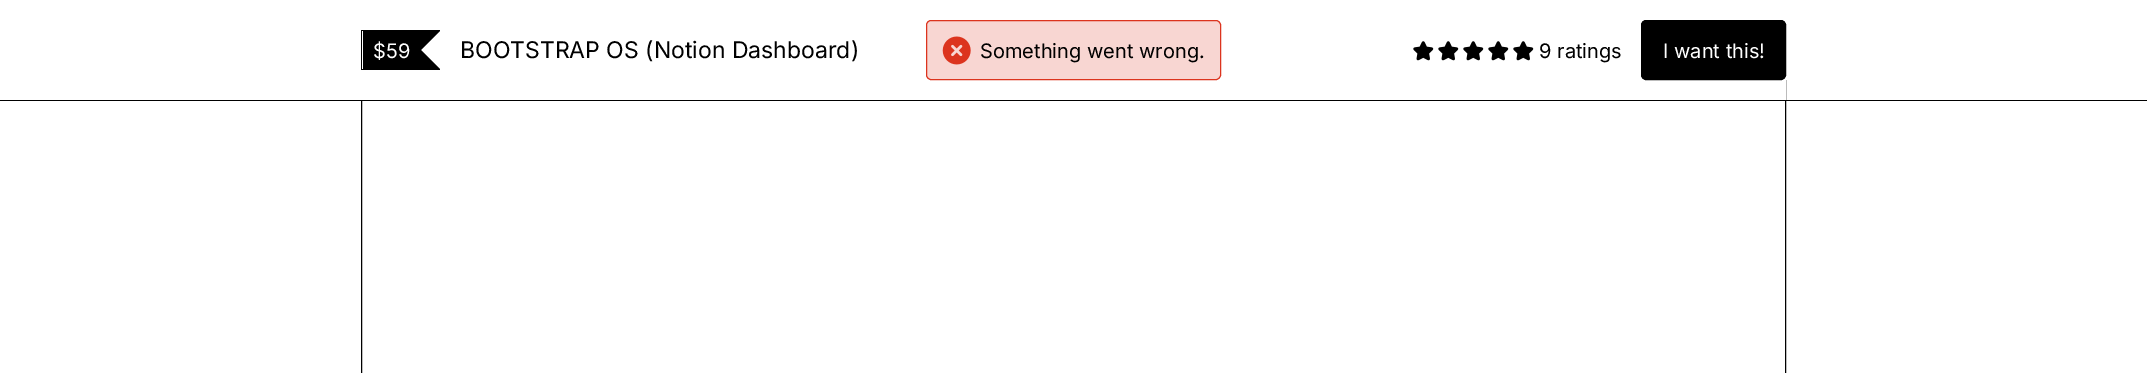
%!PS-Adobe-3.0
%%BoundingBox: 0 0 2147 373
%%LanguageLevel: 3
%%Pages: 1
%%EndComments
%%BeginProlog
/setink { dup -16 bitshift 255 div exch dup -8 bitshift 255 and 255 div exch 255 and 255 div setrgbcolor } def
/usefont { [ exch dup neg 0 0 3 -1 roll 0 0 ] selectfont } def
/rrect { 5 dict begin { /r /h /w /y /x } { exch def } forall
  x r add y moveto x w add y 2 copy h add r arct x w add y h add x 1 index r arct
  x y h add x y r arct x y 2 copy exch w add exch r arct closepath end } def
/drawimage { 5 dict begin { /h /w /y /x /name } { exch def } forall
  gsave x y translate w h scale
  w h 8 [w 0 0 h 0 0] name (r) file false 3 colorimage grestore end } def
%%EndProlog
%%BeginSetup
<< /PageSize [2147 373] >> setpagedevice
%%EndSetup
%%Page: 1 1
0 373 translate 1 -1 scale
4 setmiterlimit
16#FFFFFF setink
0 0 2147 373 rectfill
16#000000 setink
361.5 80.5 1424 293 rectstroke
0 100 moveto 0 101 lineto 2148 101 lineto 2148 1 lineto 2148 100 lineto closepath fill
[
    [361 80 1425 20 16#FFFFFF]
    [361 30 79 1 16#000000]
    [361 69 79 1 16#000000]
    [361 30 1 40 16#000000]
    [363 31 57 38 16#000000]
] { aload pop setink rectfill } forall
/Inter-Regular 20 usefont
16#FFFFFF setink
373 58 moveto ($59) show
16#000000 setink
420 31 moveto 440 31 lineto 421 50 lineto closepath 440 69 moveto 420 69 lineto 421 50 lineto closepath fill
420 31 1 38 rectfill
/Inter-Regular 23 usefont
460 58 moveto (BOOTSTRAP OS \(Notion Dashboard\)) show
(img1.raw) 1413 41 21 20 drawimage
(img1.raw) 1438 41 21 20 drawimage
(img1.raw) 1463 41 21 20 drawimage
(img1.raw) 1488 41 21 20 drawimage
(img1.raw) 1513 41 21 20 drawimage
/Inter-Regular 20 usefont
1539 58 moveto (9 ratings) show
1641.5 20.5 144 59 4.5 rrect gsave fill grestore
stroke
16#FFFFFF setink
1663 58 moveto (I want this!) show
16#F8D6D2 setink
926.5 20.5 294 59 4.5 rrect gsave fill grestore
16#DC341E setink
stroke
(img2.raw) 942 36 29 29 drawimage
16#000000 setink
980 58 moveto (Something went wrong.) show
showpage
%%EOF
